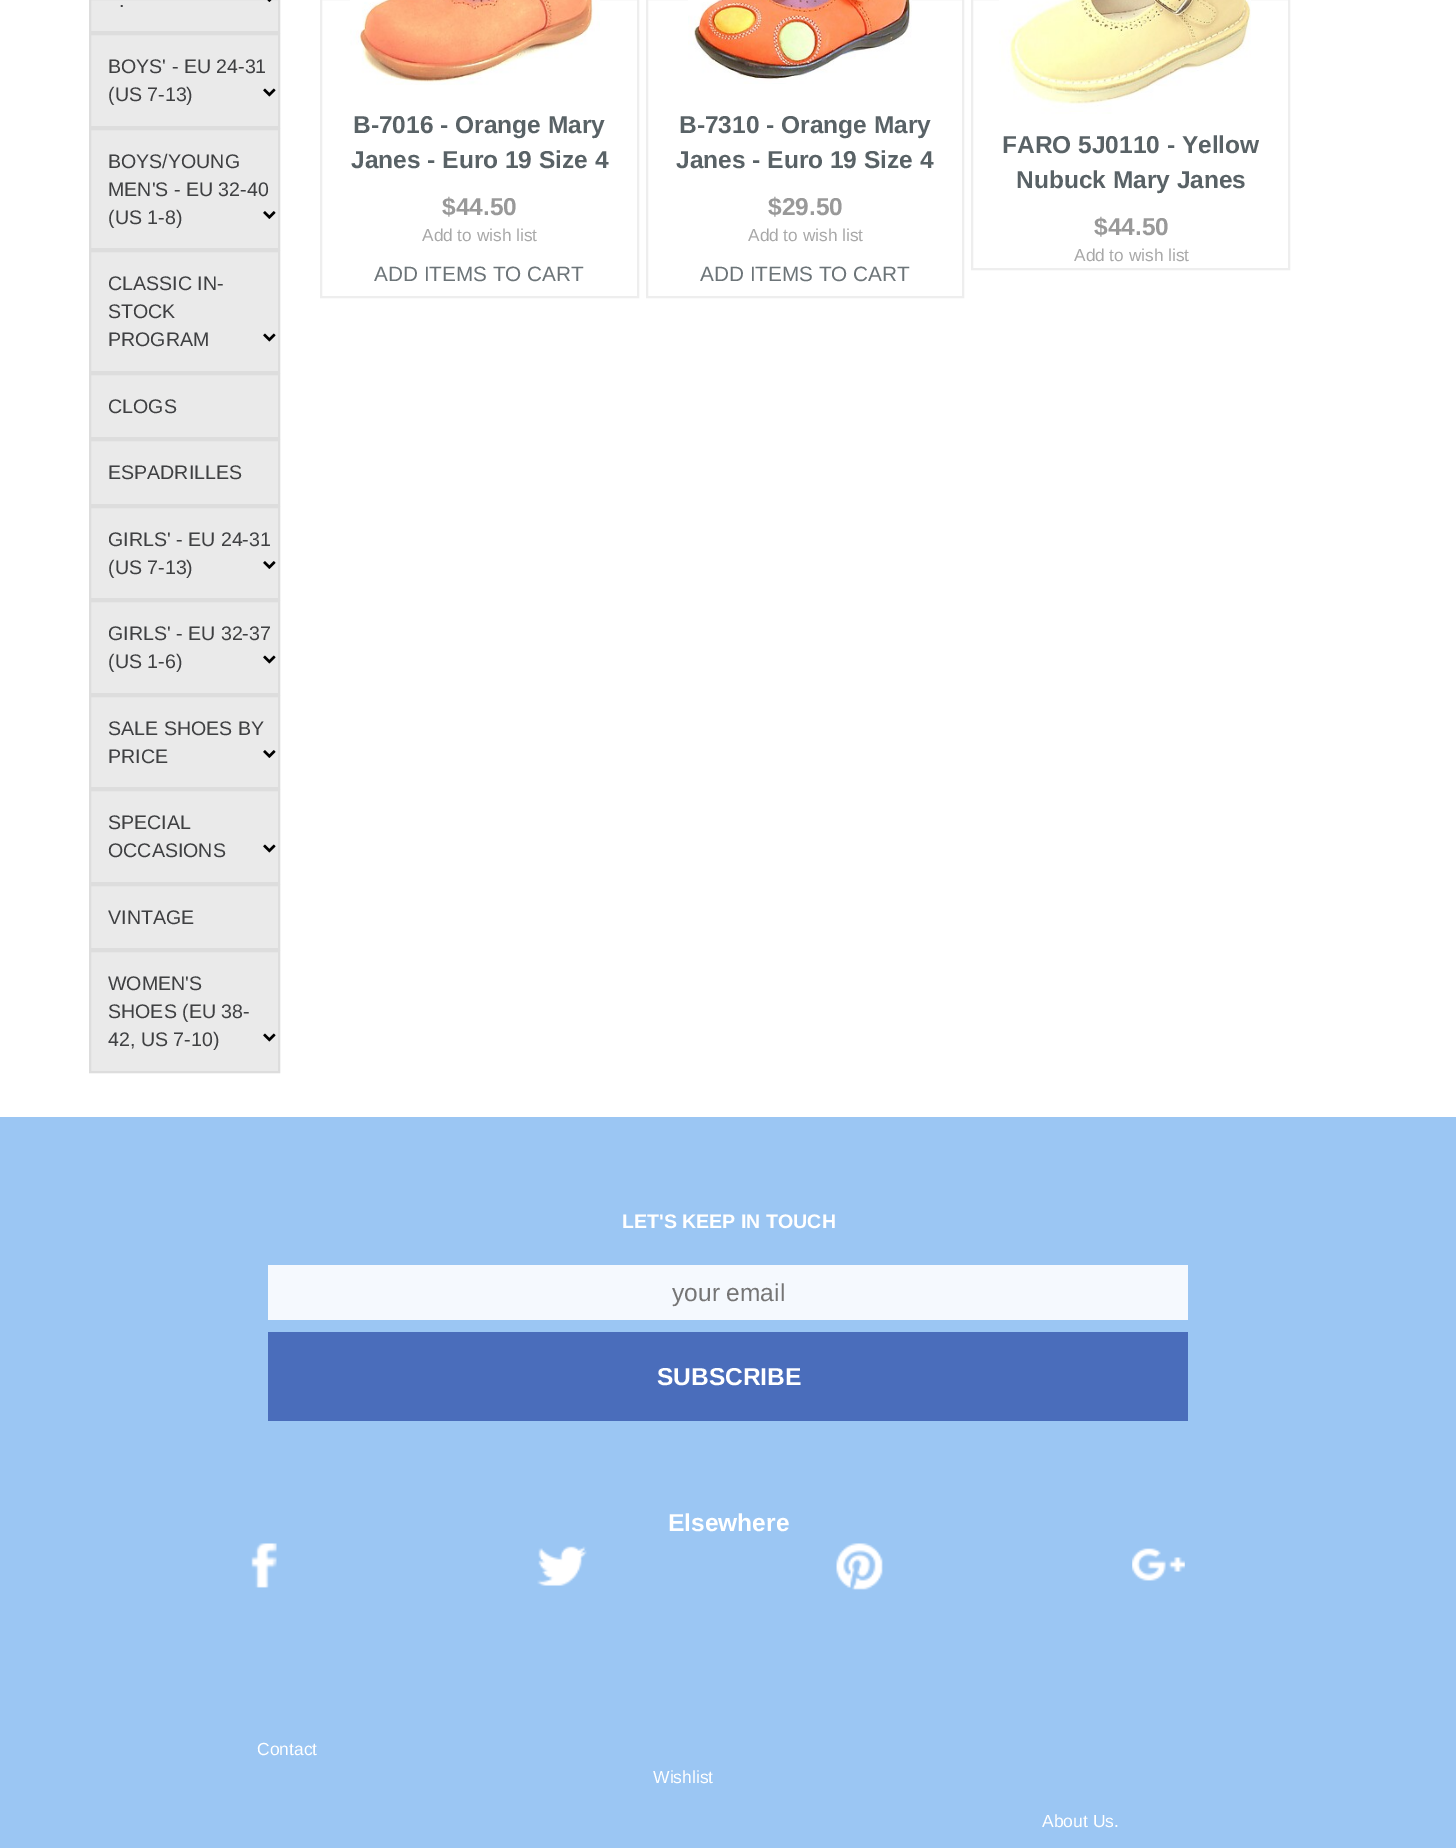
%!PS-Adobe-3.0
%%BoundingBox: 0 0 1456 1848
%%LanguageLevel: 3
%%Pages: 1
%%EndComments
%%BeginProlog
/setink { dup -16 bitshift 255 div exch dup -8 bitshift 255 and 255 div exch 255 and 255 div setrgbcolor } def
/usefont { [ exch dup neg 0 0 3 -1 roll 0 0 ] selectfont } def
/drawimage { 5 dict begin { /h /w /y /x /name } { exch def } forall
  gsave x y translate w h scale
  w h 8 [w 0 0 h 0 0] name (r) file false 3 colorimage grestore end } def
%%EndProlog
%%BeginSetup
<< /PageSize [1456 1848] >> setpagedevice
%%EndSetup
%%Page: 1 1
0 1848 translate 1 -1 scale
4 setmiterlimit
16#FFFFFF setink
0 0 1456 1848 rectfill
16#EAEAEA setink
90 -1 moveto 279 -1 lineto 279 32 lineto 90 32 lineto closepath gsave fill grestore
16#DDDDDD setink
2 setlinewidth
stroke
(img1.raw) 267 0 5 2 drawimage
/LiberationSans-Regular 19.6 usefont
16#3F4042 setink
119 7 moveto (.) show
16#EAEAEA setink
90 34 moveto 279 34 lineto 279 127 lineto 90 127 lineto closepath gsave fill grestore
16#DDDDDD setink
stroke
16#3F4042 setink
108 73 moveto (BOYS' - EU 24-31) show
108 101 moveto (\(US 7-13\)) show
(img2.raw) 263 88 13 9 drawimage
16#EAEAEA setink
90 129 moveto 279 129 lineto 279 249 lineto 90 249 lineto closepath gsave fill grestore
16#DDDDDD setink
stroke
16#3F4042 setink
[
    [(BOYS/YOUNG) 108 168]
    [(MEN'S - EU 32-40) 108 196]
    [(\(US 1-8\)) 108 224]
] { aload pop moveto show } forall
(img3.raw) 263 211 13 8 drawimage
16#EAEAEA setink
90 251 moveto 279 251 lineto 279 372 lineto 90 372 lineto closepath gsave fill grestore
16#DDDDDD setink
stroke
16#3F4042 setink
[
    [(CLASSIC IN-) 108 290]
    [(STOCK) 108 318]
    [(PROGRAM) 108 346]
] { aload pop moveto show } forall
(img2.raw) 263 333 13 9 drawimage
16#EAEAEA setink
90 374 moveto 279 374 lineto 279 438 lineto 90 438 lineto closepath gsave fill grestore
16#DDDDDD setink
stroke
16#3F4042 setink
108 413 moveto (CLOGS) show
16#EAEAEA setink
90 440 moveto 279 440 lineto 279 505 lineto 90 505 lineto closepath gsave fill grestore
16#DDDDDD setink
stroke
16#3F4042 setink
108 479 moveto (ESPADRILLES) show
16#EAEAEA setink
90 507 moveto 279 507 lineto 279 599 lineto 90 599 lineto closepath gsave fill grestore
16#DDDDDD setink
stroke
16#3F4042 setink
108 546 moveto (GIRLS' - EU 24-31) show
108 574 moveto (\(US 7-13\)) show
(img3.raw) 263 561 13 8 drawimage
16#EAEAEA setink
90 601 moveto 279 601 lineto 279 694 lineto 90 694 lineto closepath gsave fill grestore
16#DDDDDD setink
stroke
16#3F4042 setink
108 640 moveto (GIRLS' - EU 32-37) show
108 668 moveto (\(US 1-6\)) show
(img2.raw) 263 655 13 9 drawimage
16#EAEAEA setink
90 696 moveto 279 696 lineto 279 788 lineto 90 788 lineto closepath gsave fill grestore
16#DDDDDD setink
stroke
16#3F4042 setink
108 735 moveto (SALE SHOES BY) show
108 763 moveto (PRICE) show
(img3.raw) 263 750 13 8 drawimage
16#EAEAEA setink
90 790 moveto 279 790 lineto 279 883 lineto 90 883 lineto closepath gsave fill grestore
16#DDDDDD setink
stroke
16#3F4042 setink
108 829 moveto (SPECIAL) show
108 857 moveto (OCCASIONS) show
(img2.raw) 263 844 13 9 drawimage
16#EAEAEA setink
90 885 moveto 279 885 lineto 279 949 lineto 90 949 lineto closepath gsave fill grestore
16#DDDDDD setink
stroke
16#3F4042 setink
108 924 moveto (VINTAGE) show
16#EAEAEA setink
90 951 moveto 279 951 lineto 279 1072 lineto 90 1072 lineto closepath gsave fill grestore
16#DDDDDD setink
stroke
16#3F4042 setink
[
    [(WOMEN'S) 108 990]
    [(SHOES \(EU 38-) 108 1018]
    [(42, US 7-10\)) 108 1046]
] { aload pop moveto show } forall
(img2.raw) 263 1033 13 9 drawimage
16#EEEEEE setink
321 -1 317 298 rectstroke
(img4.raw) 350 0 250 85 drawimage
/LiberationSans-Bold 24.5 usefont
16#596266 setink
353 133 moveto (B-7016 - Orange Mary) show
351 168 moveto (Janes - Euro 19 Size 4) show
16#999999 setink
442 215 moveto ($44.50) show
/LiberationSans-Regular 17.25 usefont
16#A8A8A8 setink
422 241 moveto (Add to wish list) show
/LiberationSans-Regular 20.75 usefont
16#6C7478 setink
374 281 moveto (ADD ITEMS TO CART) show
16#EEEEEE setink
647 -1 316 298 rectstroke
(img5.raw) 688 0 224 84 drawimage
/LiberationSans-Bold 24.5 usefont
16#596266 setink
679 133 moveto (B-7310 - Orange Mary) show
676 168 moveto (Janes - Euro 19 Size 4) show
16#999999 setink
768 215 moveto ($29.50) show
/LiberationSans-Regular 17.25 usefont
16#A8A8A8 setink
748 241 moveto (Add to wish list) show
/LiberationSans-Regular 20.75 usefont
16#6C7478 setink
700 281 moveto (ADD ITEMS TO CART) show
16#EEEEEE setink
972 -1 317 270 rectstroke
(img6.raw) 999 0 252 114 drawimage
/LiberationSans-Bold 24.5 usefont
16#596266 setink
1002 153 moveto (FARO 5J0110 - Yellow) show
1016 188 moveto (Nubuck Mary Janes) show
16#999999 setink
1094 235 moveto ($44.50) show
/LiberationSans-Regular 17.25 usefont
16#A8A8A8 setink
1074 261 moveto (Add to wish list) show
16#9BC6F3 setink
0 1117 1456 731 rectfill
/LiberationSans-Bold 19.6 usefont
16#FFFFFF setink
622 1228 moveto (LET'S KEEP IN TOUCH) show
16#F5F9FE setink
268 1265 920 55 rectfill
/LiberationSans-Regular 24.5 usefont
16#757575 setink
672 1301 moveto (your email) show
16#4A6DBB setink
268 1332 920 89 rectfill
/LiberationSans-Bold 24.5 usefont
16#FFFFFF setink
657 1385 moveto (SUBSCRIBE) show
668 1531 moveto (Elsewhere) show
(img7.raw) 251 1543 26 45 drawimage
(img8.raw) 537 1546 50 40 drawimage
(img9.raw) 836 1543 47 47 drawimage
(img10.raw) 1132 1548 53 33 drawimage
/LiberationSans-Regular 17.5 usefont
[
    [(Contact) 257 1755]
    [(Wishlist) 653 1783]
    [(About Us.) 1042 1827]
] { aload pop moveto show } forall
showpage
%%EOF
